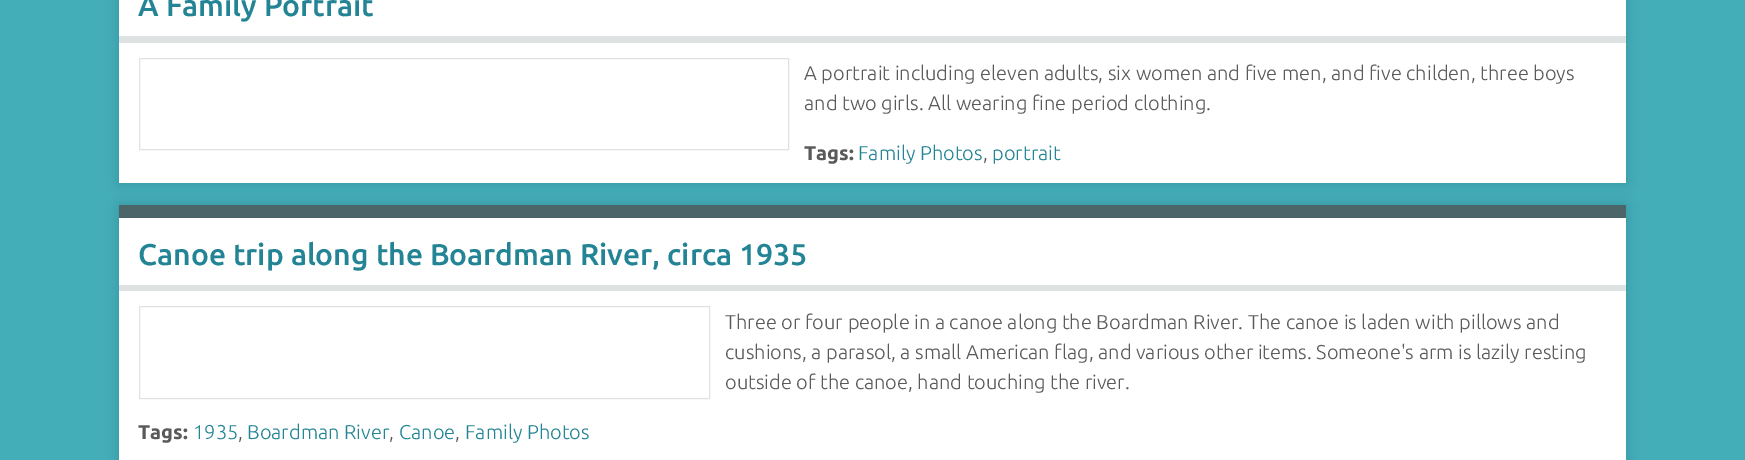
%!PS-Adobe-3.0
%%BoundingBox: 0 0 1745 460
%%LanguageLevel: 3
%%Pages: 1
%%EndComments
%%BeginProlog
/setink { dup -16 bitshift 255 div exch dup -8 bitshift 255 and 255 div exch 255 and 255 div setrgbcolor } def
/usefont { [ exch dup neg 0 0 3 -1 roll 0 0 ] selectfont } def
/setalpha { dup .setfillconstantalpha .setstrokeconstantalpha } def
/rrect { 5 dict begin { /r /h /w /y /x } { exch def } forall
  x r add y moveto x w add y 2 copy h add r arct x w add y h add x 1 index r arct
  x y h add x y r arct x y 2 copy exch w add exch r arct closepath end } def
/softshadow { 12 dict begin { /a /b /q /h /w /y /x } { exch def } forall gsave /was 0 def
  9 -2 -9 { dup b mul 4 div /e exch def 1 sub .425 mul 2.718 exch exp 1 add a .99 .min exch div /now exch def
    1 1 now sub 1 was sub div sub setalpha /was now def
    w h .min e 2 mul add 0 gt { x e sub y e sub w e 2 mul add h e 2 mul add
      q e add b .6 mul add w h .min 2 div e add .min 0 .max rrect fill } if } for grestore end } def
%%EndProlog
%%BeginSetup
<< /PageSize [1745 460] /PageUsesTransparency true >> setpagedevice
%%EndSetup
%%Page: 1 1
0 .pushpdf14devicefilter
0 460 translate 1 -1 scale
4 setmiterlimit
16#43ADB8 setink
0 0 1745 460 rectfill
16#000000 setink
119 -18 1507 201 0 6 0.15 softshadow
16#FFFFFF setink
119 0 1507 183 rectfill
16#DFE2E2 setink
119 36 1507 7 rectfill
/Ubuntu-Medium 30 usefont
16#228494 setink
138 16 moveto (A Family Portrait) show
16#DFE2E2 setink
139.5 58.5 649 91 rectstroke
/Ubuntu-Light 20 usefont
16#5A5A5A setink
804 80 moveto (A portrait including eleven adults, six women and five men, and five childen, three boys) show
804 110 moveto (and two girls. All wearing fine period clothing.) show
/Ubuntu-Bold 20 usefont
804 160 moveto (Tags:) show
/Ubuntu-Light 20 usefont
16#228494 setink
858 160 moveto (Family Photos) show
16#5A5A5A setink
983 160 moveto (,) show
16#228494 setink
992 160 moveto (portrait) show
16#000000 setink
119 205 1507 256 0 6 0.15 softshadow
[
    [119 218 1507 242 16#FFFFFF]
    [119 205 1507 13 16#4B6569]
    [119 285 1507 6 16#DFE2E2]
] { aload pop setink rectfill } forall
/Ubuntu-Medium 30 usefont
16#228494 setink
138 265 moveto (Canoe trip along the Boardman River, circa 1935) show
16#DFE2E2 setink
139.5 306.5 570 92 rectstroke
/Ubuntu-Light 20 usefont
16#5A5A5A setink
[
    [(Three or four people in a canoe along the Boardman River. The canoe is laden with pillows and) 725 329]
    [(cushions, a parasol, a small American flag, and various other items. Someone's arm is lazily resting) 725 359]
    [(outside of the canoe, hand touching the river.) 725 389]
] { aload pop moveto show } forall
/Ubuntu-Bold 20 usefont
138 439 moveto (Tags:) show
/Ubuntu-Light 20 usefont
16#228494 setink
193 439 moveto (1935) show
16#5A5A5A setink
238 439 moveto (,) show
16#228494 setink
247 439 moveto (Boardman River) show
16#5A5A5A setink
389 439 moveto (,) show
16#228494 setink
399 439 moveto (Canoe) show
16#5A5A5A setink
455 439 moveto (,) show
16#228494 setink
465 439 moveto (Family Photos) show
.poppdf14devicefilter showpage
%%EOF
